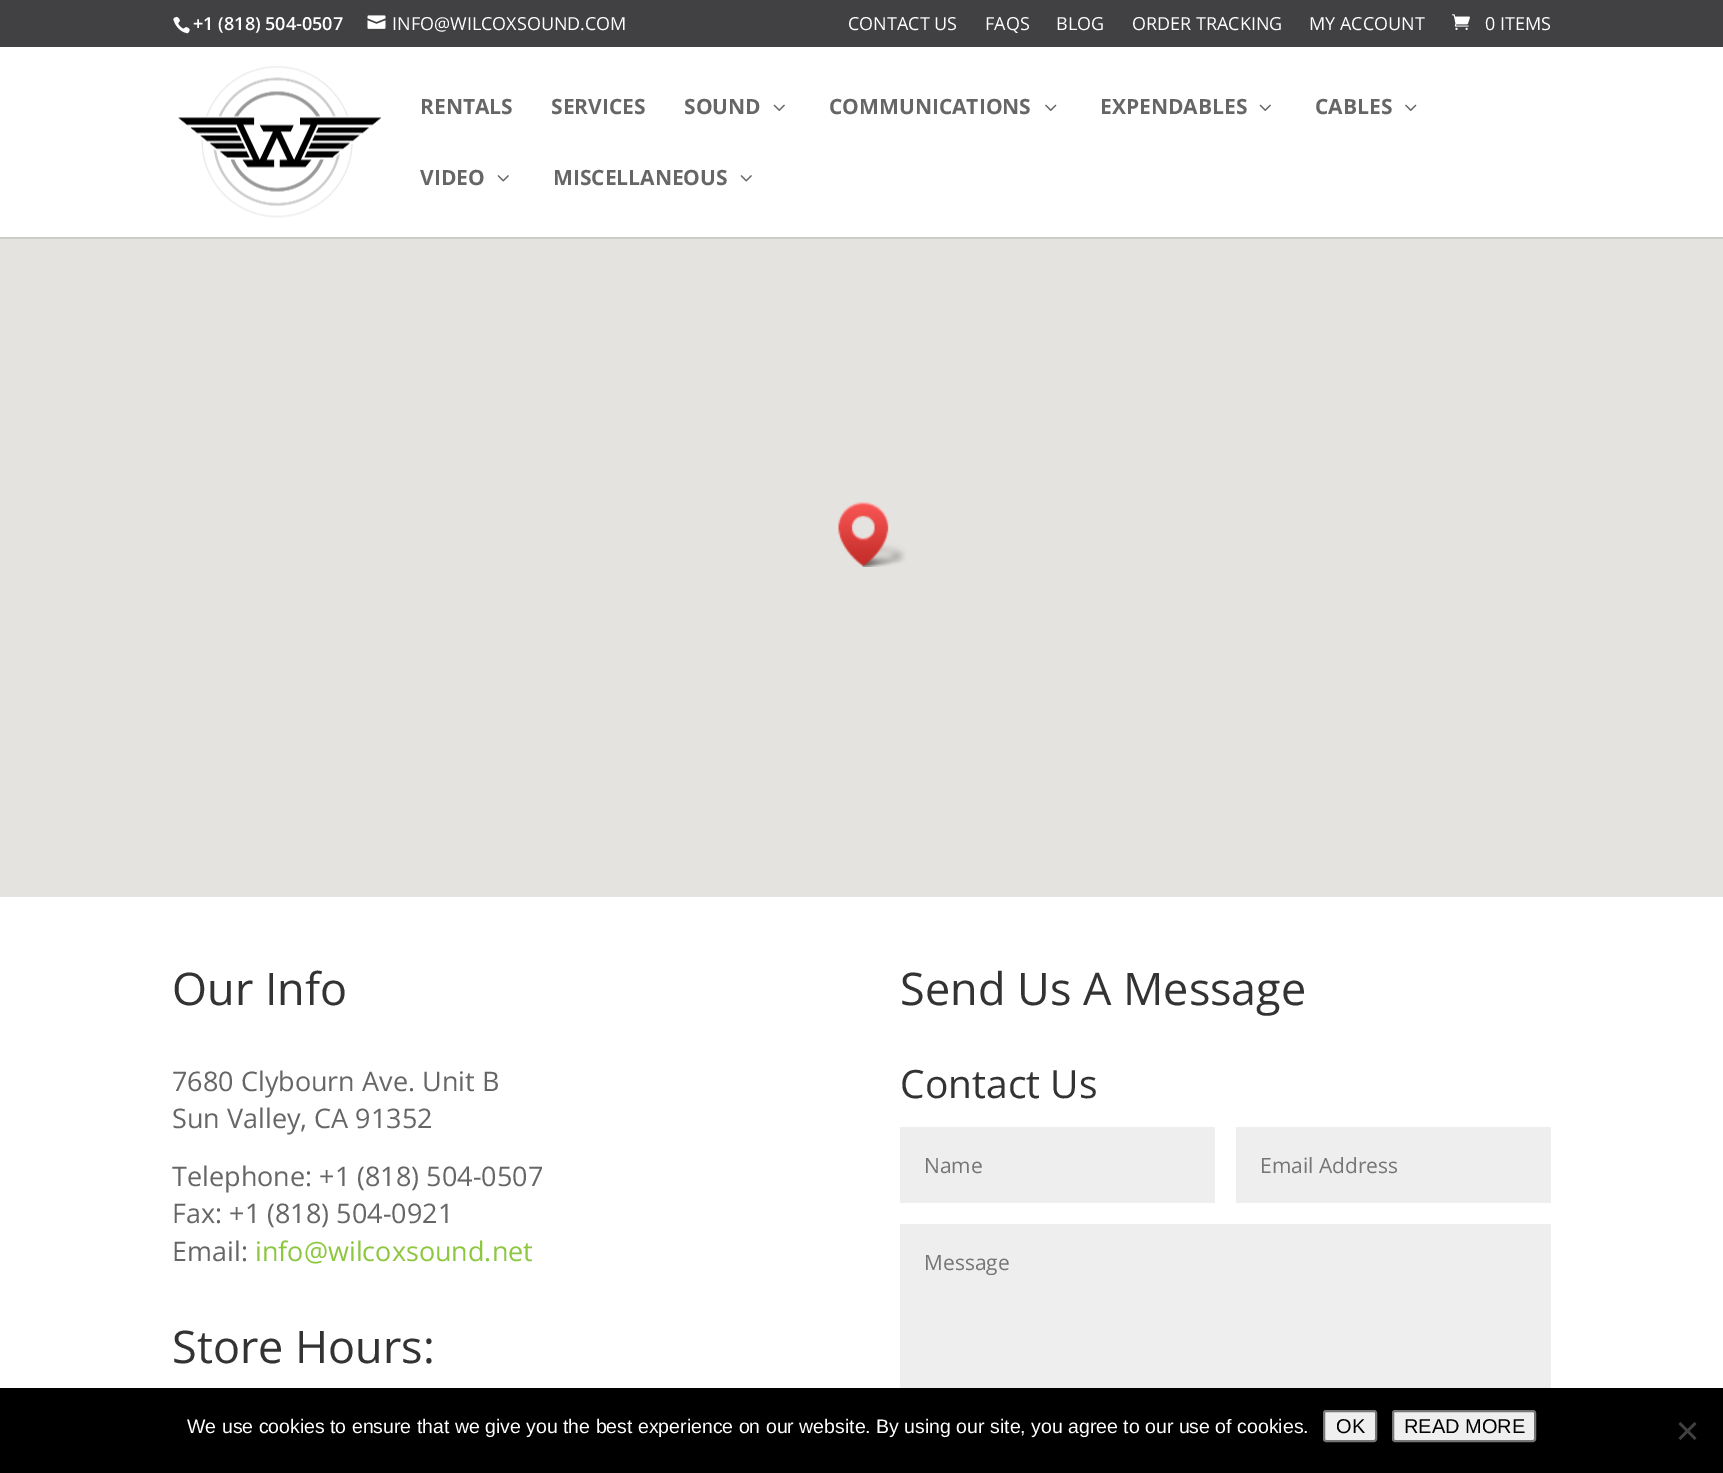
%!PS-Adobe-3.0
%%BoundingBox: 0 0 1723 1473
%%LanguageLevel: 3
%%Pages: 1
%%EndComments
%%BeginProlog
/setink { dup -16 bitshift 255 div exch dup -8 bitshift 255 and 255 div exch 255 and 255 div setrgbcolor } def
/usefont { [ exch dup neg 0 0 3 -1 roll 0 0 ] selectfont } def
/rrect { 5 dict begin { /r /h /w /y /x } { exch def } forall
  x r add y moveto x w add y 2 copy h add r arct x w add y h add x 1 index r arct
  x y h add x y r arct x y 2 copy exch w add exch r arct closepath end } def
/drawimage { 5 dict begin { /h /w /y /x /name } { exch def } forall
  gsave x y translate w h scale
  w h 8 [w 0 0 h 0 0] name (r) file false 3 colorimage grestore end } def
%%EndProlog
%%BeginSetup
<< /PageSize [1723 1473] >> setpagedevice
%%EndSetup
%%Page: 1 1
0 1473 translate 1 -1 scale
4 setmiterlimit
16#FFFFFF setink
0 0 1723 1473 rectfill
16#414042 setink
0 0 1723 47 rectfill
(img1.raw) 173 16 17 18 drawimage
/OpenSans-SemiBold 18 usefont
16#FFFFFF setink
193 30 moveto (+1 \(818\) 504-0507) show
(img2.raw) 367 15 19 14 drawimage
/OpenSans-Regular 18 usefont
[
    [(INFO@WILCOXSOUND.COM) 392 30]
    [(CONTACT US) 848 30]
    [(FAQS) 985 30]
    [(BLOG) 1056 30]
    [(ORDER TRACKING) 1132 30]
    [(MY ACCOUNT) 1309 30]
] { aload pop moveto show } forall
(img3.raw) 1452 14 18 16 drawimage
1485 30 moveto (0 ITEMS) show
16#CECCC9 setink
0 237 moveto 0 239 lineto 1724 239 lineto 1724 48 lineto 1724 237 lineto closepath fill
(img4.raw) 178 66 203 152 drawimage
/OpenSans-Bold 21 usefont
16#666666 setink
[
    [(RENTALS) 420 114]
    [(SERVICES) 551 114]
    [(SOUND) 684 114]
] { aload pop moveto show } forall
(img5.raw) 773 104 12 7 drawimage
829 114 moveto (COMMUNICATIONS) show
(img6.raw) 1045 104 12 7 drawimage
1100 114 moveto (EXPENDABLES) show
(img5.raw) 1259 104 12 7 drawimage
1315 114 moveto (CABLES) show
(img6.raw) 1405 104 12 7 drawimage
420 185 moveto (VIDEO) show
(img7.raw) 497 175 12 7 drawimage
553 185 moveto (MISCELLANEOUS) show
(img7.raw) 740 175 12 7 drawimage
16#E5E3DF setink
0 239 1723 658 rectfill
(img8.raw) 838 502 68 65 drawimage
/OpenSans-Regular 45 usefont
16#333333 setink
172 1005 moveto (Our Info) show
/OpenSans-Regular 27 usefont
16#666666 setink
[
    [(7680 Clybourn Ave. Unit B) 172 1091]
    [(Sun Valley, CA 91352) 172 1128]
    [(Telephone: +1 \(818\) 504-0507) 172 1186]
    [(Fax: +1 \(818\) 504-0921) 172 1223]
    [(Email:) 172 1261]
] { aload pop moveto show } forall
16#8DC63F setink
255 1261 moveto (info@wilcoxsound.net) show
/OpenSans-Regular 45 usefont
16#333333 setink
172 1363 moveto (Store Hours:) show
900 1005 moveto (Send Us A Message) show
/OpenSans-Regular 39 usefont
900 1098 moveto (Contact Us) show
16#EEEEEE setink
900 1127 315 76 rectfill
/OpenSans-Regular 21 usefont
16#757575 setink
924 1173 moveto (Name) show
16#EEEEEE setink
1236 1127 315 76 rectfill
16#757575 setink
1260 1173 moveto (Email Address) show
16#EEEEEE setink
900 1224 651 164 rectfill
16#757575 setink
924 1270 moveto (Message) show
16#000000 setink
0 1388 1723 85 rectfill
/LiberationSans-Regular 19.5 usefont
16#FFFFFF setink
187 1433 moveto (We use cookies to ensure that we give you the best experience on our website. By using our site, you agree to our use of cookies.) show
16#EFEFEF setink
1324 1411 52 30 2 rrect gsave fill grestore
16#767676 setink
2 setlinewidth
stroke
/LiberationSans-Regular 20 usefont
16#000000 setink
1336 1433 moveto (OK) show
16#EFEFEF setink
1393 1411 142 30 2 rrect gsave fill grestore
16#767676 setink
stroke
16#000000 setink
1404 1433 moveto (READ MORE) show
16#404040 setink
1694.5 1422 moveto 1696.5 1424 lineto 1680.5 1440 lineto 1678.5 1438 lineto closepath fill
1678.5 1424 moveto 1680.5 1422 lineto 1696.5 1438 lineto 1694.5 1440 lineto closepath fill
showpage
%%EOF
